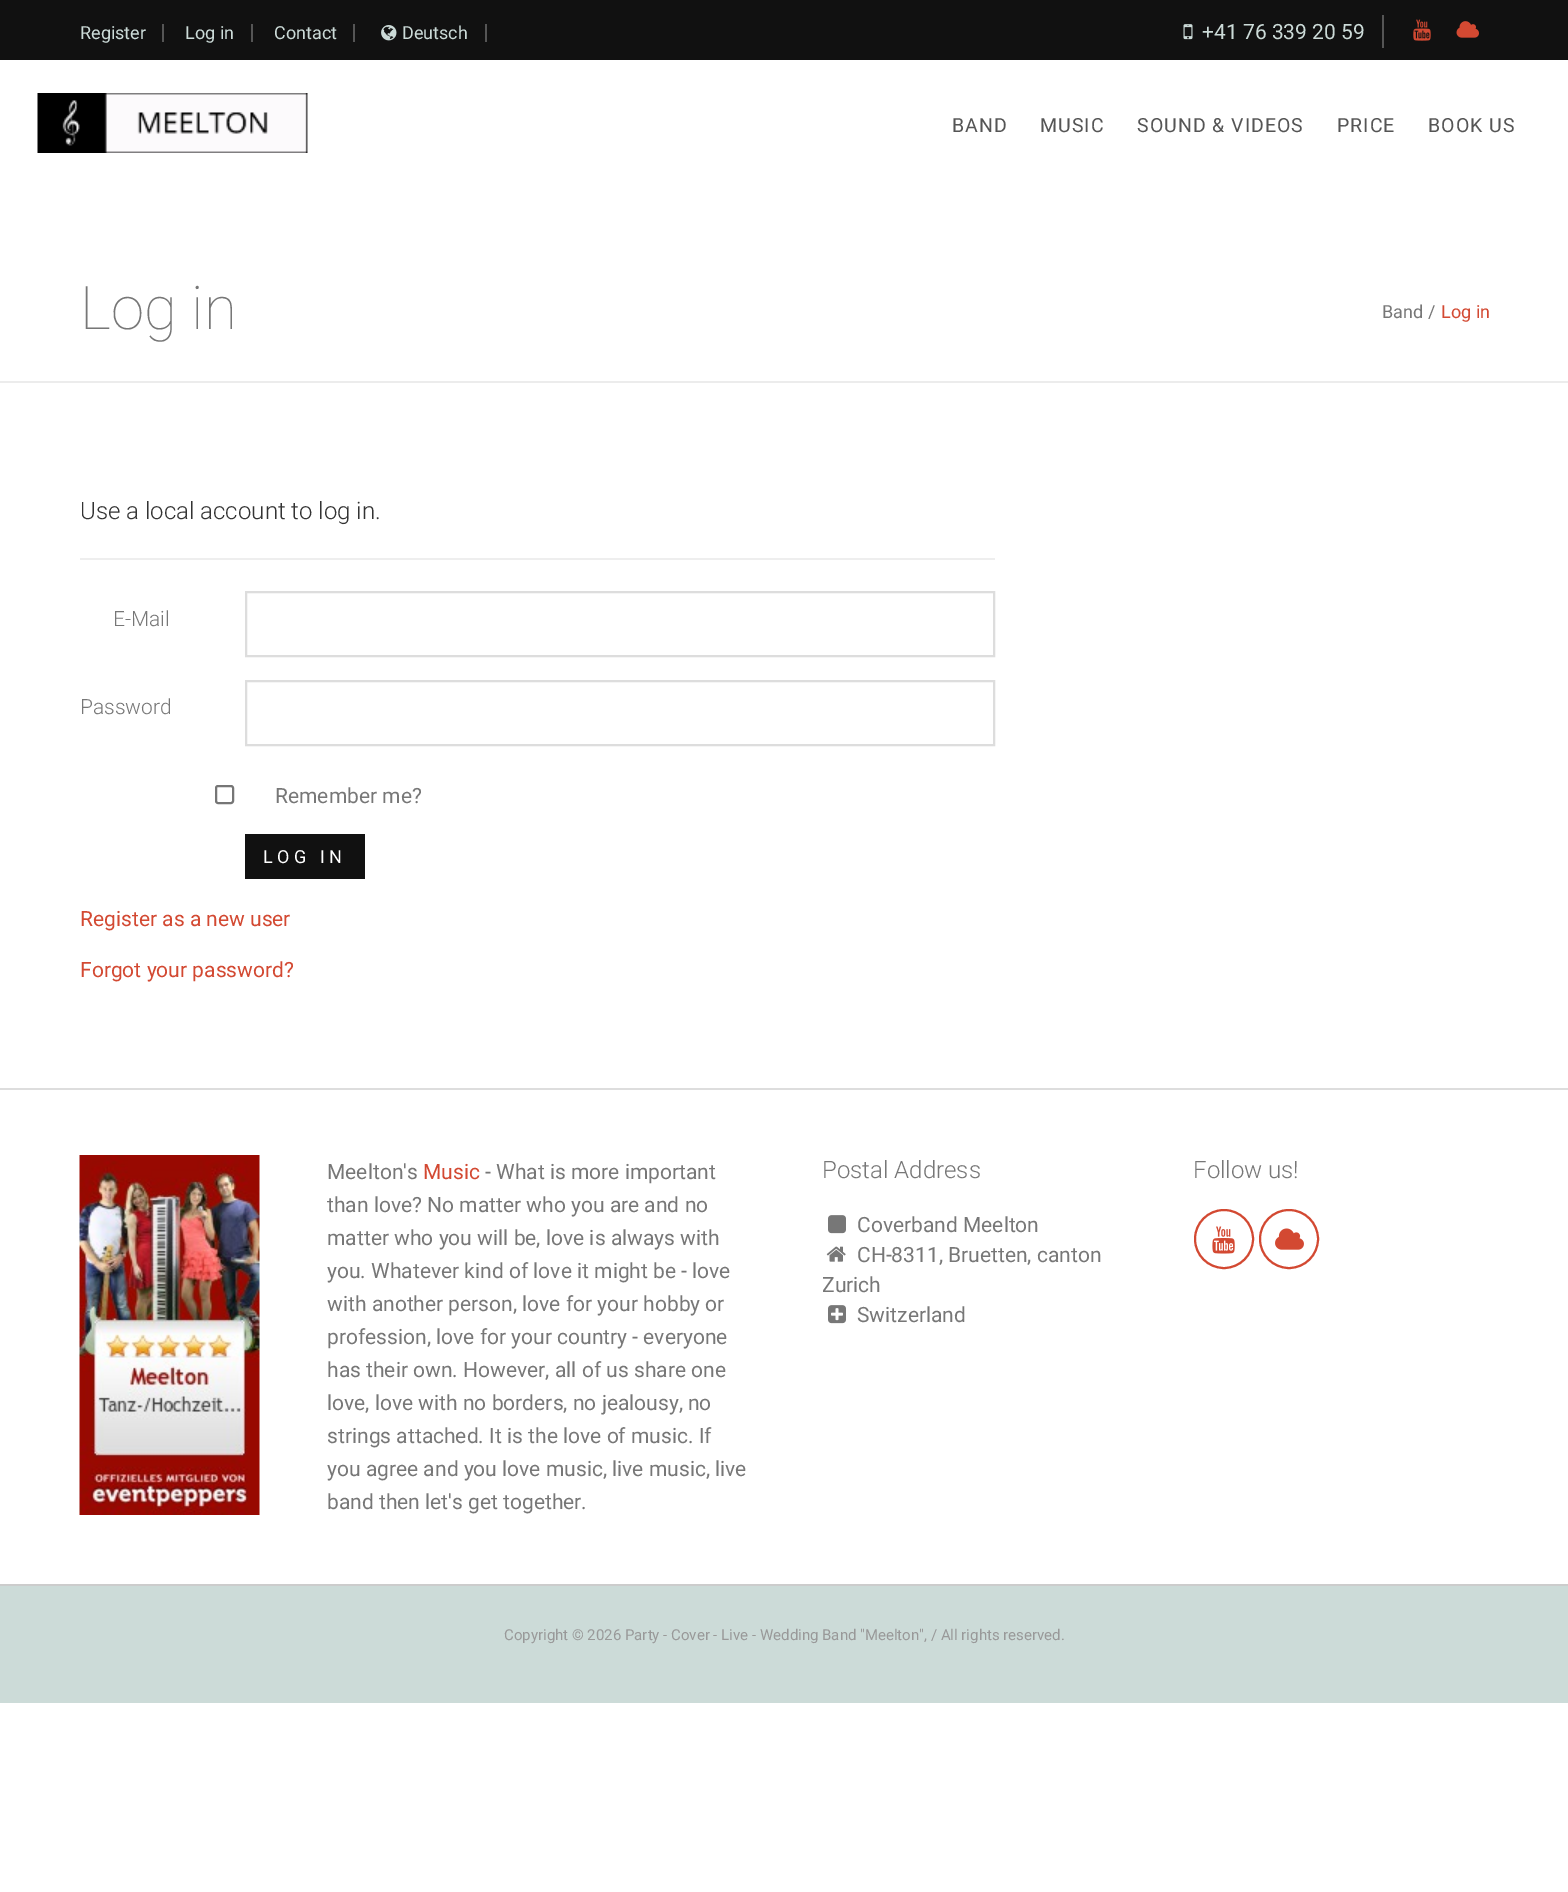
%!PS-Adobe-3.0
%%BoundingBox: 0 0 1568 1892
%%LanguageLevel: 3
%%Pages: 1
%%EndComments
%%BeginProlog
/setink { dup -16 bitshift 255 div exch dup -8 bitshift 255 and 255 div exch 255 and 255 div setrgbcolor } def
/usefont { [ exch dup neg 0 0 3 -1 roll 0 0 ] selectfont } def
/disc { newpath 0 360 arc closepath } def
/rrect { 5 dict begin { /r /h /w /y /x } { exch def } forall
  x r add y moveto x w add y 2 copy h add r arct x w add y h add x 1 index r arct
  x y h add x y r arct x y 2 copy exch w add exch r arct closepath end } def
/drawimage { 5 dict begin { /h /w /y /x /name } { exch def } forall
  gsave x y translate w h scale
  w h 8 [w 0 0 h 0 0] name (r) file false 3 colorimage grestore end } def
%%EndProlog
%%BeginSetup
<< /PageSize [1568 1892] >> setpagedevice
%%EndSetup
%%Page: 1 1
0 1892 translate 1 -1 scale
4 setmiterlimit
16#FFFFFF setink
0 0 1568 1892 rectfill
16#111111 setink
0 0 1568 60 rectfill
16#555555 setink
162 24 2 18 rectfill
/Roboto-Regular 18 usefont
16#CCDBD8 setink
80 39 moveto (Register) show
16#555555 setink
251 24 2 18 rectfill
16#CCDBD8 setink
185 39 moveto (Log in) show
16#555555 setink
353 24 2 18 rectfill
16#CCDBD8 setink
274 39 moveto (Contact) show
16#555555 setink
485 24 2 18 rectfill
(img1.raw) 381 25 16 16 drawimage
16#CCDBD8 setink
402 39 moveto (Deutsch) show
16#555555 setink
1382 15 2 33 rectfill
(img2.raw) 1183 24 10 16 drawimage
/Roboto-Regular 21 usefont
16#CCDBD8 setink
1202 39 moveto (+41 76 339 20 59) show
(img3.raw) 1413 19 18 22 drawimage
(img4.raw) 1456 21 23 17 drawimage
(img5.raw) 37 93 271 60 drawimage
/Roboto-Regular 19.5 usefont
16#555555 setink
952 132 moveto 1 0 (BAND) ashow
1040 132 moveto 1 0 (MUSIC) ashow
1137 132 moveto 1 0 (SOUND & VIDEOS) ashow
1337 132 moveto 1 0 (PRICE) ashow
1428 132 moveto 1 0 (BOOK US) ashow
16#ECECEC setink
0 381 1568 2 rectfill
/Roboto-Thin 60 usefont
16#777777 setink
80 329 moveto (Log in) show
/Roboto-Regular 18 usefont
1382 318 moveto (Band /) show
16#D34932 setink
1441 318 moveto (Log in) show
/Roboto-Light 24 usefont
16#333333 setink
80 519 moveto (Use a local account to log in.) show
16#EEEEEE setink
80 558 915 2 rectfill
/Roboto-Light 21 usefont
16#777777 setink
113 626 moveto (E-Mail) show
16#DDDDDD setink
2 setlinewidth
246 592 748 64 rectstroke
16#777777 setink
80 714 moveto (Password) show
16#DDDDDD setink
246 681 748 64 rectstroke
16#767676 setink
216 786 17 17 2 rrect stroke
/Roboto-Regular 21 usefont
16#777777 setink
275 803 moveto (Remember me?) show
16#111111 setink
245 834 120 45 rectfill
/Roboto-Regular 18 usefont
16#FFFFFF setink
263 863 moveto 4.5 0 (LOG IN) ashow
/Roboto-Regular 21 usefont
16#D34932 setink
80 926 moveto (Register as a new user) show
80 977 moveto (Forgot your password?) show
16#DDDDDD setink
0 1088 1568 2 rectfill
(img6.raw) 79 1155 181 360 drawimage
16#777777 setink
327 1179 moveto (Meelton's) show
16#D34932 setink
423 1179 moveto (Music) show
16#777777 setink
[
    [(- What is more important) 485 1179]
    [(than love? No matter who you are and no) 327 1212]
    [(matter who you will be, love is always with) 327 1245]
    [(you. Whatever kind of love it might be - love) 327 1278]
    [(with another person, love for your hobby or) 327 1311]
    [(profession, love for your country - everyone) 327 1344]
    [(has their own. However, all of us share one) 327 1377]
    [(love, love with no borders, no jealousy, no) 327 1410]
    [(strings attached. It is the love of music. If) 327 1443]
    [(you agree and you love music, live music, live) 327 1476]
    [(band then let's get together.) 327 1509]
] { aload pop moveto show } forall
/Roboto-Light 24 usefont
822 1178 moveto (Postal Address) show
(img7.raw) 828 1215 18 19 drawimage
/Roboto-Regular 21 usefont
857 1232 moveto (Coverband Meelton) show
(img8.raw) 826 1246 20 16 drawimage
857 1262 moveto (CH-8311, Bruetten, canton) show
822 1292 moveto (Zurich) show
(img9.raw) 828 1305 18 19 drawimage
857 1322 moveto (Switzerland) show
/Roboto-Light 24 usefont
1193 1178 moveto (Follow us!) show
16#D34932 setink
1224 1239 29 disc stroke
(img10.raw) 1212 1226 23 28 drawimage
1289 1239 29 disc stroke
(img11.raw) 1275 1228 29 22 drawimage
16#CCDBD8 setink
0 1586 1568 117 rectfill
16#CCCCCC setink
0 1584 1568 2 rectfill
/Roboto-Regular 15 usefont
16#999999 setink
504 1640 moveto (Copyright © 2026 Party - Cover - Live - Wedding Band "Meelton", / All rights reserved.) show
showpage
%%EOF
